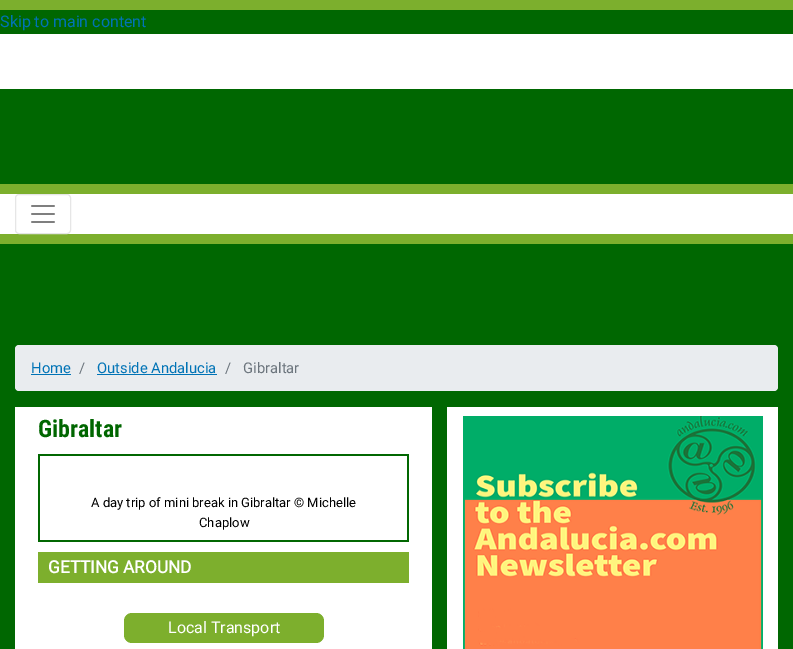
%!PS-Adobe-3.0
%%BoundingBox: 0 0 793 649
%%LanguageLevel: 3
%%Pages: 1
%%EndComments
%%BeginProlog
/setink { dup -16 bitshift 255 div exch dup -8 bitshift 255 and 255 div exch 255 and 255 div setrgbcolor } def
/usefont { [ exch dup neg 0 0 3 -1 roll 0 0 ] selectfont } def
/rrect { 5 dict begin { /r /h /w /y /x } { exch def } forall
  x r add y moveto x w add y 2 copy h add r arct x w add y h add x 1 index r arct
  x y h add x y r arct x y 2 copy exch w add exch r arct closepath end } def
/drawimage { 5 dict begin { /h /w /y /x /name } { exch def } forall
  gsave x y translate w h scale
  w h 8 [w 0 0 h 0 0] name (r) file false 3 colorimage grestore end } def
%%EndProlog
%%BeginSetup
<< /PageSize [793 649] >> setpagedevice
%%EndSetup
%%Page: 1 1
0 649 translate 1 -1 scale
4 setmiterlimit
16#006701 setink
0 0 793 649 rectfill
16#7CAF2D setink
0 0 793 10 rectfill
/Roboto-Regular 16 usefont
16#0073B6 setink
0 27 moveto (Skip to main content) show
[
    [0 184 793 10 16#7CAF2D]
    [0 34 793 55 16#FFFFFF]
    [0 194 793 40 16#FFFFFF]
    [0 234 793 10 16#7DAF2D]
] { aload pop setink rectfill } forall
16#E6E6E6 setink
15.5 194.5 55 39 3.5 rrect stroke
(img1.raw) 31 205 24 18 drawimage
16#E9ECEF setink
15 345 763 46 4 rrect fill
/Roboto-Regular 14.75 usefont
16#0073B6 setink
31 373 moveto (Home) show
31 374 40 1 rectfill
16#6C757D setink
79 373 moveto (/) show
16#0073B6 setink
97 373 moveto (Outside Andalucia) show
97 374 120 1 rectfill
16#6C757D setink
225 373 moveto (/) show
243 373 moveto (Gibraltar) show
16#FFFFFF setink
15 407 417 242 rectfill
/RobotoCondensed-Bold 24 usefont
16#006600 setink
38 437 moveto (Gibraltar) show
[
    [38 454 371 2 16#016701]
    [407 454 2 88 16#016701]
    [38 540 371 2 16#016701]
    [38 454 2 88 16#016701]
] { aload pop setink rectfill } forall
/Roboto-Regular 13 usefont
16#000000 setink
91 507 moveto (A day trip of mini break in Gibraltar © Michelle) show
199 527 moveto (Chaplow) show
16#7DAF2D setink
38 552 371 31 rectfill
/Roboto-Bold 17.25 usefont
16#FFFFFF setink
48 573 moveto (GETTING AROUND) show
16#7DAF2D setink
124 613 200 30 8 rrect fill
/Roboto-Regular 16 usefont
16#FFFFFF setink
168 633 moveto (Local Transport) show
447 407 331 242 rectfill
(img2.raw) 463 416 300 233 drawimage
showpage
%%EOF
